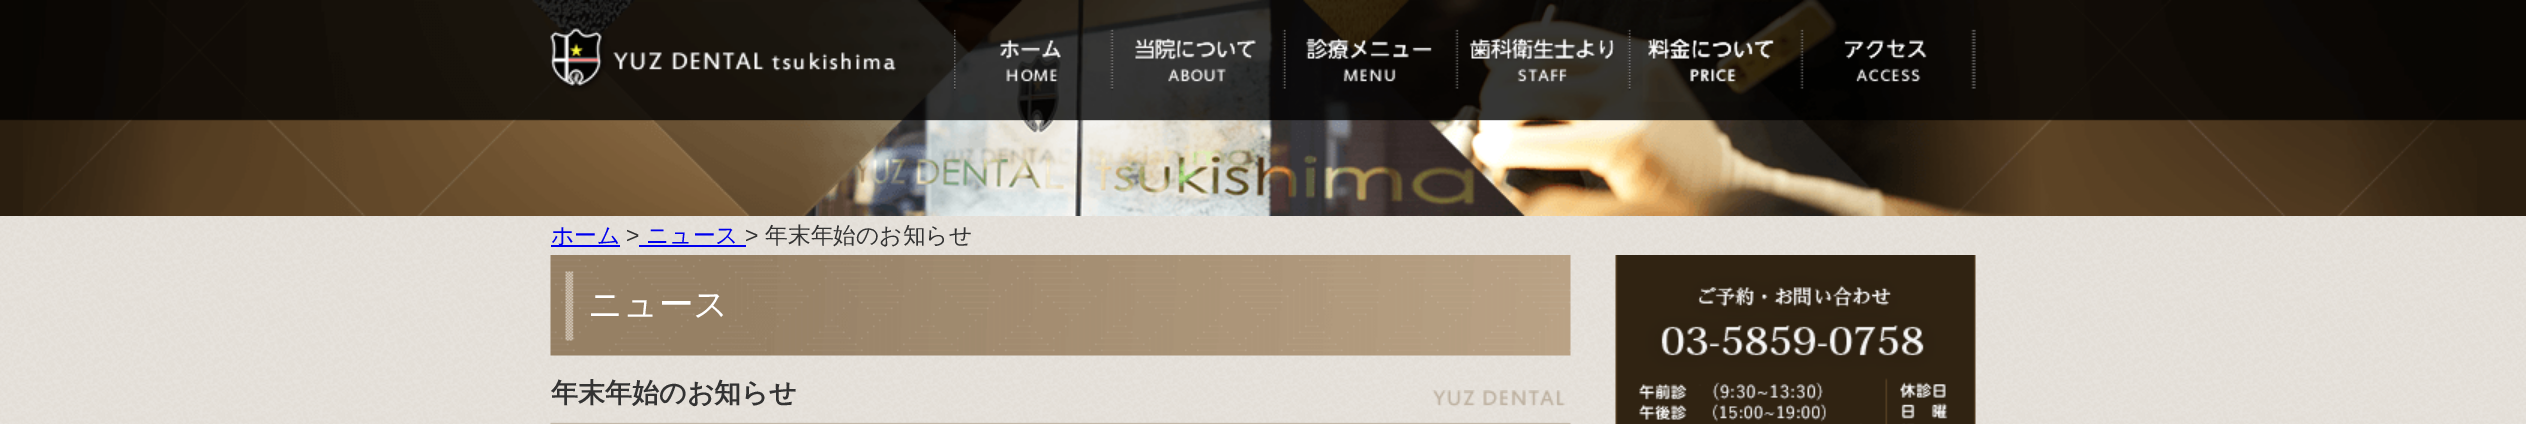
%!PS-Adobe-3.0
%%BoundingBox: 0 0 2526 424
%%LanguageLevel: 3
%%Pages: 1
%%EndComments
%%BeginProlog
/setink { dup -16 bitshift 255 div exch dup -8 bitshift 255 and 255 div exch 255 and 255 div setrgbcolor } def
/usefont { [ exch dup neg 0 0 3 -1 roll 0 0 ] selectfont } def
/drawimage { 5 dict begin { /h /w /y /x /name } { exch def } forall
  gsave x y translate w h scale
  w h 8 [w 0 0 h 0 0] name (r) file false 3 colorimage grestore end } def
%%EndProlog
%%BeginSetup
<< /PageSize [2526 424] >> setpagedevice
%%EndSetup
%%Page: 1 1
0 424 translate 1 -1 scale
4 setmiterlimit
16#FFFFFF setink
0 0 2526 424 rectfill
(img1.raw) 0 216 2526 208 drawimage
(img2.raw) 0 0 2526 216 drawimage
(img3.raw) 23 0 2454 216 drawimage
(img4.raw) 550 2 404 118 drawimage
(img5.raw) 954 0 158 120 drawimage
(img6.raw) 1111 0 173 120 drawimage
(img7.raw) 1284 0 173 120 drawimage
(img8.raw) 1456 0 173 120 drawimage
(img9.raw) 1629 2 173 118 drawimage
(img10.raw) 1801 0 173 120 drawimage
16#0000EE setink
551 245 69 2 rectfill
/WenQuanYiZenHei-Medium 22.75 usefont
551 243 moveto (ホーム) show
/LiberationSans-Regular 22.75 usefont
16#333333 setink
626 243 moveto (>) show
/WenQuanYiZenHei-Medium 22.75 usefont
16#0000EE setink
646 243 moveto (ニュース) show
639 245 107 2 rectfill
/LiberationSans-Regular 22.75 usefont
16#333333 setink
745 243 moveto (>) show
/WenQuanYiZenHei-Medium 22.75 usefont
765 243 moveto (年末年始のお知らせ) show
(img11.raw) 550 255 1021 101 drawimage
/WenQuanYiZenHei-Medium 34.5 usefont
16#FFFFFF setink
588 316 moveto (ニュース) show
(img12.raw) 550 390 1021 34 drawimage
/WenQuanYiZenHei-Bold 27 usefont
16#333333 setink
551 402 moveto (年末年始のお知らせ) show
(img13.raw) 1615 255 361 169 drawimage
showpage
%%EOF
